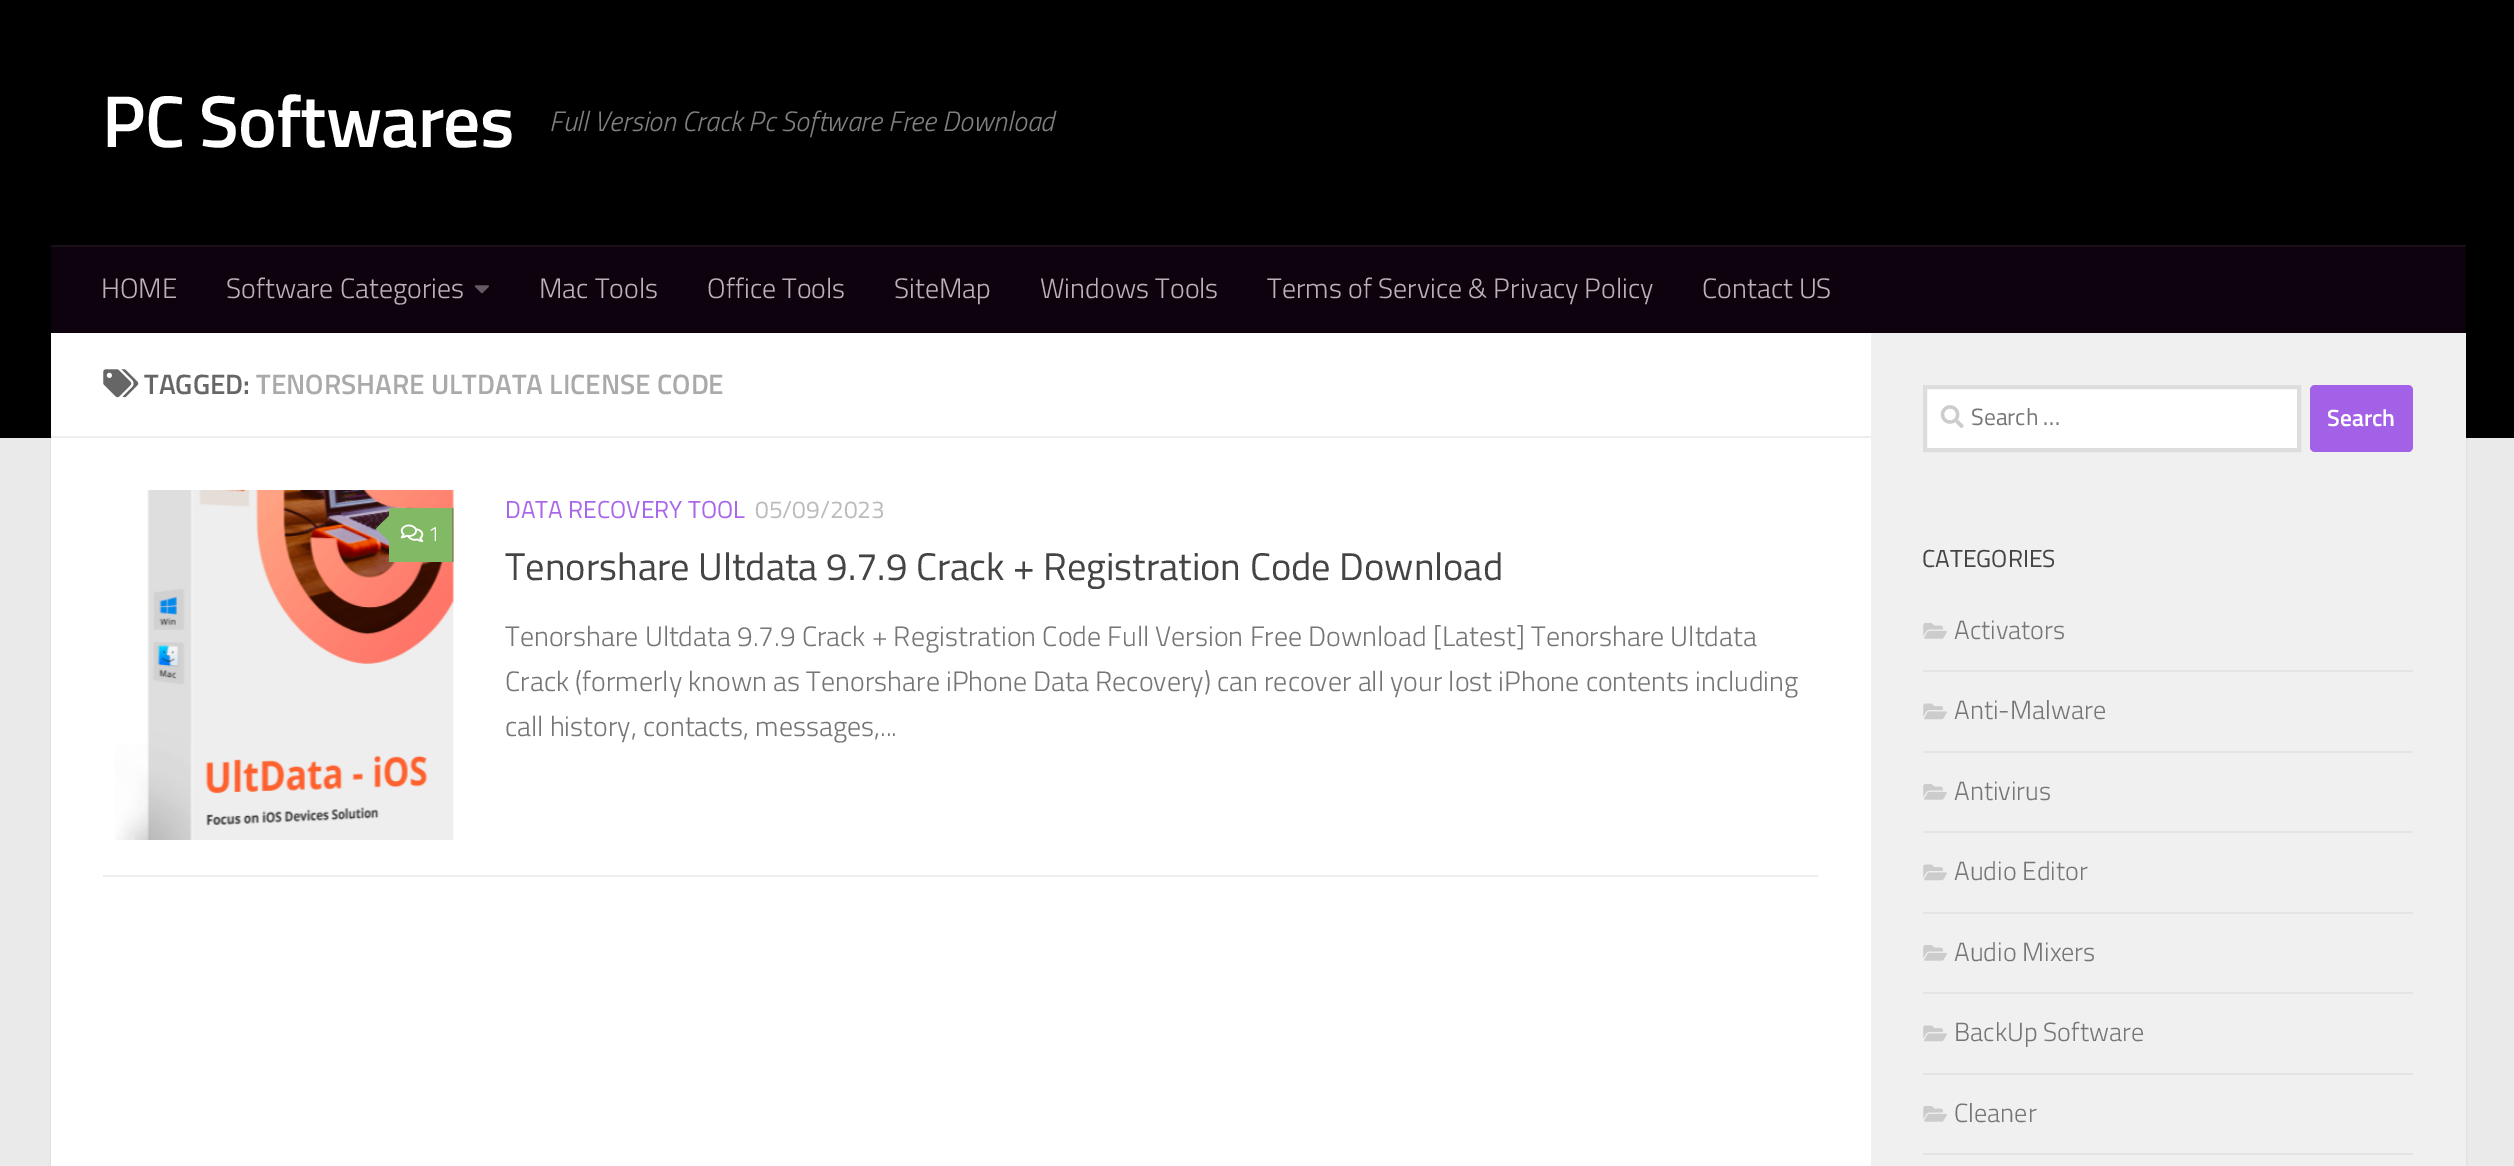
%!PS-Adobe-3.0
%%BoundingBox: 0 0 2514 1166
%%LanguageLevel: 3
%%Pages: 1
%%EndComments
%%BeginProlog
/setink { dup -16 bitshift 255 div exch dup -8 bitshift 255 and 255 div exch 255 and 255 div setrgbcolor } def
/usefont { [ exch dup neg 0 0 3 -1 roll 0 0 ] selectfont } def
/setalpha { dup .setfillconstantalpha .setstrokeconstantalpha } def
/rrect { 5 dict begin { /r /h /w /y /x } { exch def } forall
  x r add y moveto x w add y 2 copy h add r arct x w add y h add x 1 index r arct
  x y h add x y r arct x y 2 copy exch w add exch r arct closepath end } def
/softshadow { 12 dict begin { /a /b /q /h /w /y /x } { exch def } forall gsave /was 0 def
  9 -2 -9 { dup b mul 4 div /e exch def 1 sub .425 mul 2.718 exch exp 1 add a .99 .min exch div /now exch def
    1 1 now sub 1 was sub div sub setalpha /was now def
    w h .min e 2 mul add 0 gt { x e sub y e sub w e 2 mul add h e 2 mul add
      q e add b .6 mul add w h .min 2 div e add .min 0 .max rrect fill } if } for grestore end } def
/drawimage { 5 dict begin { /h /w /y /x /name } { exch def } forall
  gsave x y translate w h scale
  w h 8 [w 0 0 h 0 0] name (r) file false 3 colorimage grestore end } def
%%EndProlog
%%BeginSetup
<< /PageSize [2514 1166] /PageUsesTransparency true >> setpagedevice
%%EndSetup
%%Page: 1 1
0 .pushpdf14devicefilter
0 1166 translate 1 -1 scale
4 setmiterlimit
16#EAEAEA setink
0 0 2514 1166 rectfill
16#000000 setink
51 334 2415 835 0 1 0.1 softshadow
0 0 2514 438 rectfill
/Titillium-SemiBold 73.5 usefont
16#FFFFFF setink
102 147 moveto -0.9 0 (PC Softwares) ashow
/Titillium-LightItalic 28 usefont
16#808080 setink
549 131 moveto (Full Version Crack Pc Software Free Download) show
[
    [53 247 2411 86 16#0F020F]
    [51 245 2415 2 16#1B0F1B]
    [2464 245 2 88 16#0C020C]
    [2464 245 2 2 16#180F18]
    [51 245 2 88 16#0C020C]
    [51 245 2 2 16#180F18]
] { aload pop setink rectfill } forall
/Titillium-Light 28 usefont
16#B7B3B7 setink
101 298 moveto (HOME) show
226 298 moveto (Software Categories) show
(img1.raw) 474 285 15 9 drawimage
[
    [(Mac Tools) 539 298]
    [(Office Tools) 707 298]
    [(SiteMap) 894 298]
    [(Windows Tools) 1040 298]
    [(Terms of Service & Privacy Policy) 1267 298]
    [(Contact US) 1702 298]
] { aload pop moveto show } forall
[
    [51 333 1820 833 16#FFFFFF]
    [1871 333 595 833 16#F0F0F0]
    [51 436 1820 2 16#EEEEEE]
] { aload pop setink rectfill } forall
(img2.raw) 103 369 36 29 drawimage
/Titillium-SemiBold 28 usefont
16#666666 setink
144 394 moveto (TAGGED:) show
16#AAAAAA setink
256 394 moveto (TENORSHARE ULTDATA LICENSE CODE) show
16#EEEEEE setink
103 875 1715 2 rectfill
(img3.raw) 115 490 339 350 drawimage
16#82B965 setink
389 508 64 54 rectfill
0.2 setalpha
16#000000 setink
452 508 2 54 rectfill
1 setalpha
16#82B965 setink
392 513 moveto 392 544 lineto 376 528.5 lineto closepath fill
(img4.raw) 400 524 24 18 drawimage
/Titillium-Light 21 usefont
16#FFFFFF setink
428 541 moveto (1) show
/Titillium-Regular 24.5 usefont
16#A866EB setink
505 518 moveto (DATA RECOVERY TOOL) show
16#BBBBBB setink
755 518 moveto (05/09/2023) show
/Titillium-Regular 38.5 usefont
16#444444 setink
505 580 moveto (Tenorshare Ultdata 9.7.9 Crack + Registration Code Download) show
/Titillium-Light 28 usefont
16#767676 setink
[
    [(Tenorshare Ultdata 9.7.9 Crack + Registration Code Full Version Free Download [Latest] Tenorshare Ultdata) 505 646]
    [(Crack \(formerly known as Tenorshare iPhone Data Recovery\) can recover all your lost iPhone contents including) 505 691]
    [(call history, contacts, messages,...) 505 736]
] { aload pop moveto show } forall
16#FFFFFF setink
1925 387 moveto 2299 387 lineto 2299 450 lineto 1925 450 lineto closepath gsave fill grestore
16#DDDDDD setink
4 setlinewidth
stroke
(img5.raw) 1940 405 24 23 drawimage
/Titillium-Regular 23.5 usefont
16#767676 setink
1971 425 moveto (Search …) show
16#A361E7 setink
2310 385 103 67 5 rrect fill
/Titillium-SemiBold 23.5 usefont
16#FFFFFF setink
2327 426 moveto (Search) show
/Titillium-Regular 24.5 usefont
16#444444 setink
1922 567 moveto (CATEGORIES) show
16#E4E4E4 setink
1923 670 490 2 rectfill
(img6.raw) 1923 623 24 16 drawimage
/Titillium-Light 26.25 usefont
16#767676 setink
1954 639 moveto (Activators) show
16#E4E4E4 setink
1923 751 490 2 rectfill
(img7.raw) 1923 703 24 17 drawimage
16#767676 setink
1954 719 moveto (Anti-Malware) show
16#E4E4E4 setink
1923 831 490 2 rectfill
(img6.raw) 1923 784 24 16 drawimage
16#767676 setink
1954 800 moveto (Antivirus) show
16#E4E4E4 setink
1923 912 490 2 rectfill
(img7.raw) 1923 864 24 17 drawimage
16#767676 setink
1954 880 moveto (Audio Editor) show
16#E4E4E4 setink
1923 992 490 2 rectfill
(img6.raw) 1923 945 24 16 drawimage
16#767676 setink
1954 961 moveto (Audio Mixers) show
16#E4E4E4 setink
1923 1073 490 2 rectfill
(img7.raw) 1923 1025 24 17 drawimage
16#767676 setink
1954 1041 moveto (BackUp Software) show
16#E4E4E4 setink
1923 1153 490 2 rectfill
(img6.raw) 1923 1106 24 16 drawimage
16#767676 setink
1954 1122 moveto (Cleaner) show
.poppdf14devicefilter showpage
%%EOF
